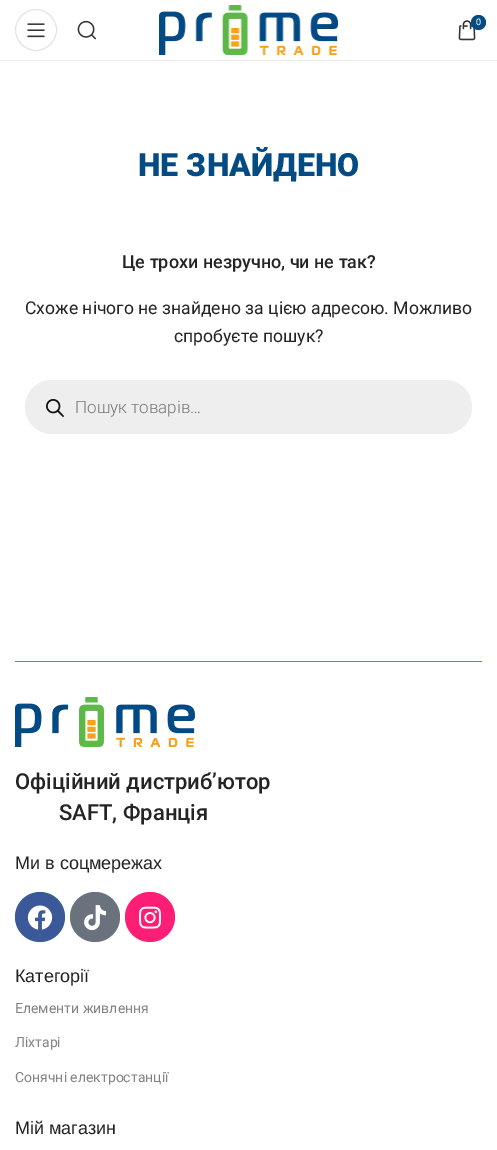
%!PS-Adobe-3.0
%%BoundingBox: 0 0 497 1150
%%LanguageLevel: 3
%%Pages: 1
%%EndComments
%%BeginProlog
/setink { dup -16 bitshift 255 div exch dup -8 bitshift 255 and 255 div exch 255 and 255 div setrgbcolor } def
/usefont { [ exch dup neg 0 0 3 -1 roll 0 0 ] selectfont } def
/disc { newpath 0 360 arc closepath } def
/rrect { 5 dict begin { /r /h /w /y /x } { exch def } forall
  x r add y moveto x w add y 2 copy h add r arct x w add y h add x 1 index r arct
  x y h add x y r arct x y 2 copy exch w add exch r arct closepath end } def
/drawimage { 5 dict begin { /h /w /y /x /name } { exch def } forall
  gsave x y translate w h scale
  w h 8 [w 0 0 h 0 0] name (r) file false 3 colorimage grestore end } def
%%EndProlog
%%BeginSetup
<< /PageSize [497 1150] >> setpagedevice
%%EndSetup
%%Page: 1 1
0 1150 translate 1 -1 scale
4 setmiterlimit
16#FFFFFF setink
0 0 497 1150 rectfill
16#E8E8E8 setink
0 60 497 1 rectfill
16#E4E4E4 setink
36 30 20.5 disc stroke
(img1.raw) 27 23 18 15 drawimage
(img2.raw) 77 20 19 20 drawimage
(img3.raw) 159 5 179 50 drawimage
(img4.raw) 458 20 18 21 drawimage
16#044B83 setink
478.5 22.5 7.5 disc fill
/Roboto-Regular 9 usefont
16#FFFFFF setink
476 25 moveto (0) show
/Roboto-Black 32 usefont
16#044B83 setink
138 176 moveto (НЕ ЗНАЙДЕНО) show
/Roboto-Medium 18 usefont
16#242424 setink
122 268 moveto (Це трохи незручно, чи не так?) show
/Roboto-Regular 17.6 usefont
25 314 moveto (Схоже нічого не знайдено за цією адресою. Можливо) show
174 342 moveto (спробуєте пошук?) show
16#EEEEEE setink
25 380 447 54 27 rrect fill
(img5.raw) 46 399 18 18 drawimage
/Roboto-Light 17 usefont
16#777777 setink
75 413 moveto (Пошук товарів…) show
16#4CB213 setink
15 661 467 1 rectfill
(img6.raw) 15 697 180 50 drawimage
/Roboto-Medium 22 usefont
16#242424 setink
15 789 moveto (Офіційний дистриб’ютор) show
59 820 moveto (SAFT, Франція) show
/LiberationSans-Regular 18 usefont
15 869 moveto (Ми в соцмережах) show
16#3B5998 setink
40 917 25 disc fill
(img7.raw) 27 905 26 25 drawimage
16#69727D setink
95 917 25 disc fill
(img8.raw) 84 905 22 26 drawimage
16#FF1E76 setink
150 917 25 disc fill
(img9.raw) 139 906 22 23 drawimage
16#242424 setink
15 982 moveto (Категорії) show
/Roboto-Regular 14 usefont
16#838383 setink
[
    [(Елементи живлення) 15 1013]
    [(Ліхтарі) 15 1047]
    [(Сонячні електростанції) 15 1082]
] { aload pop moveto show } forall
/LiberationSans-Regular 18 usefont
16#242424 setink
15 1134 moveto (Мій магазин) show
showpage
%%EOF
